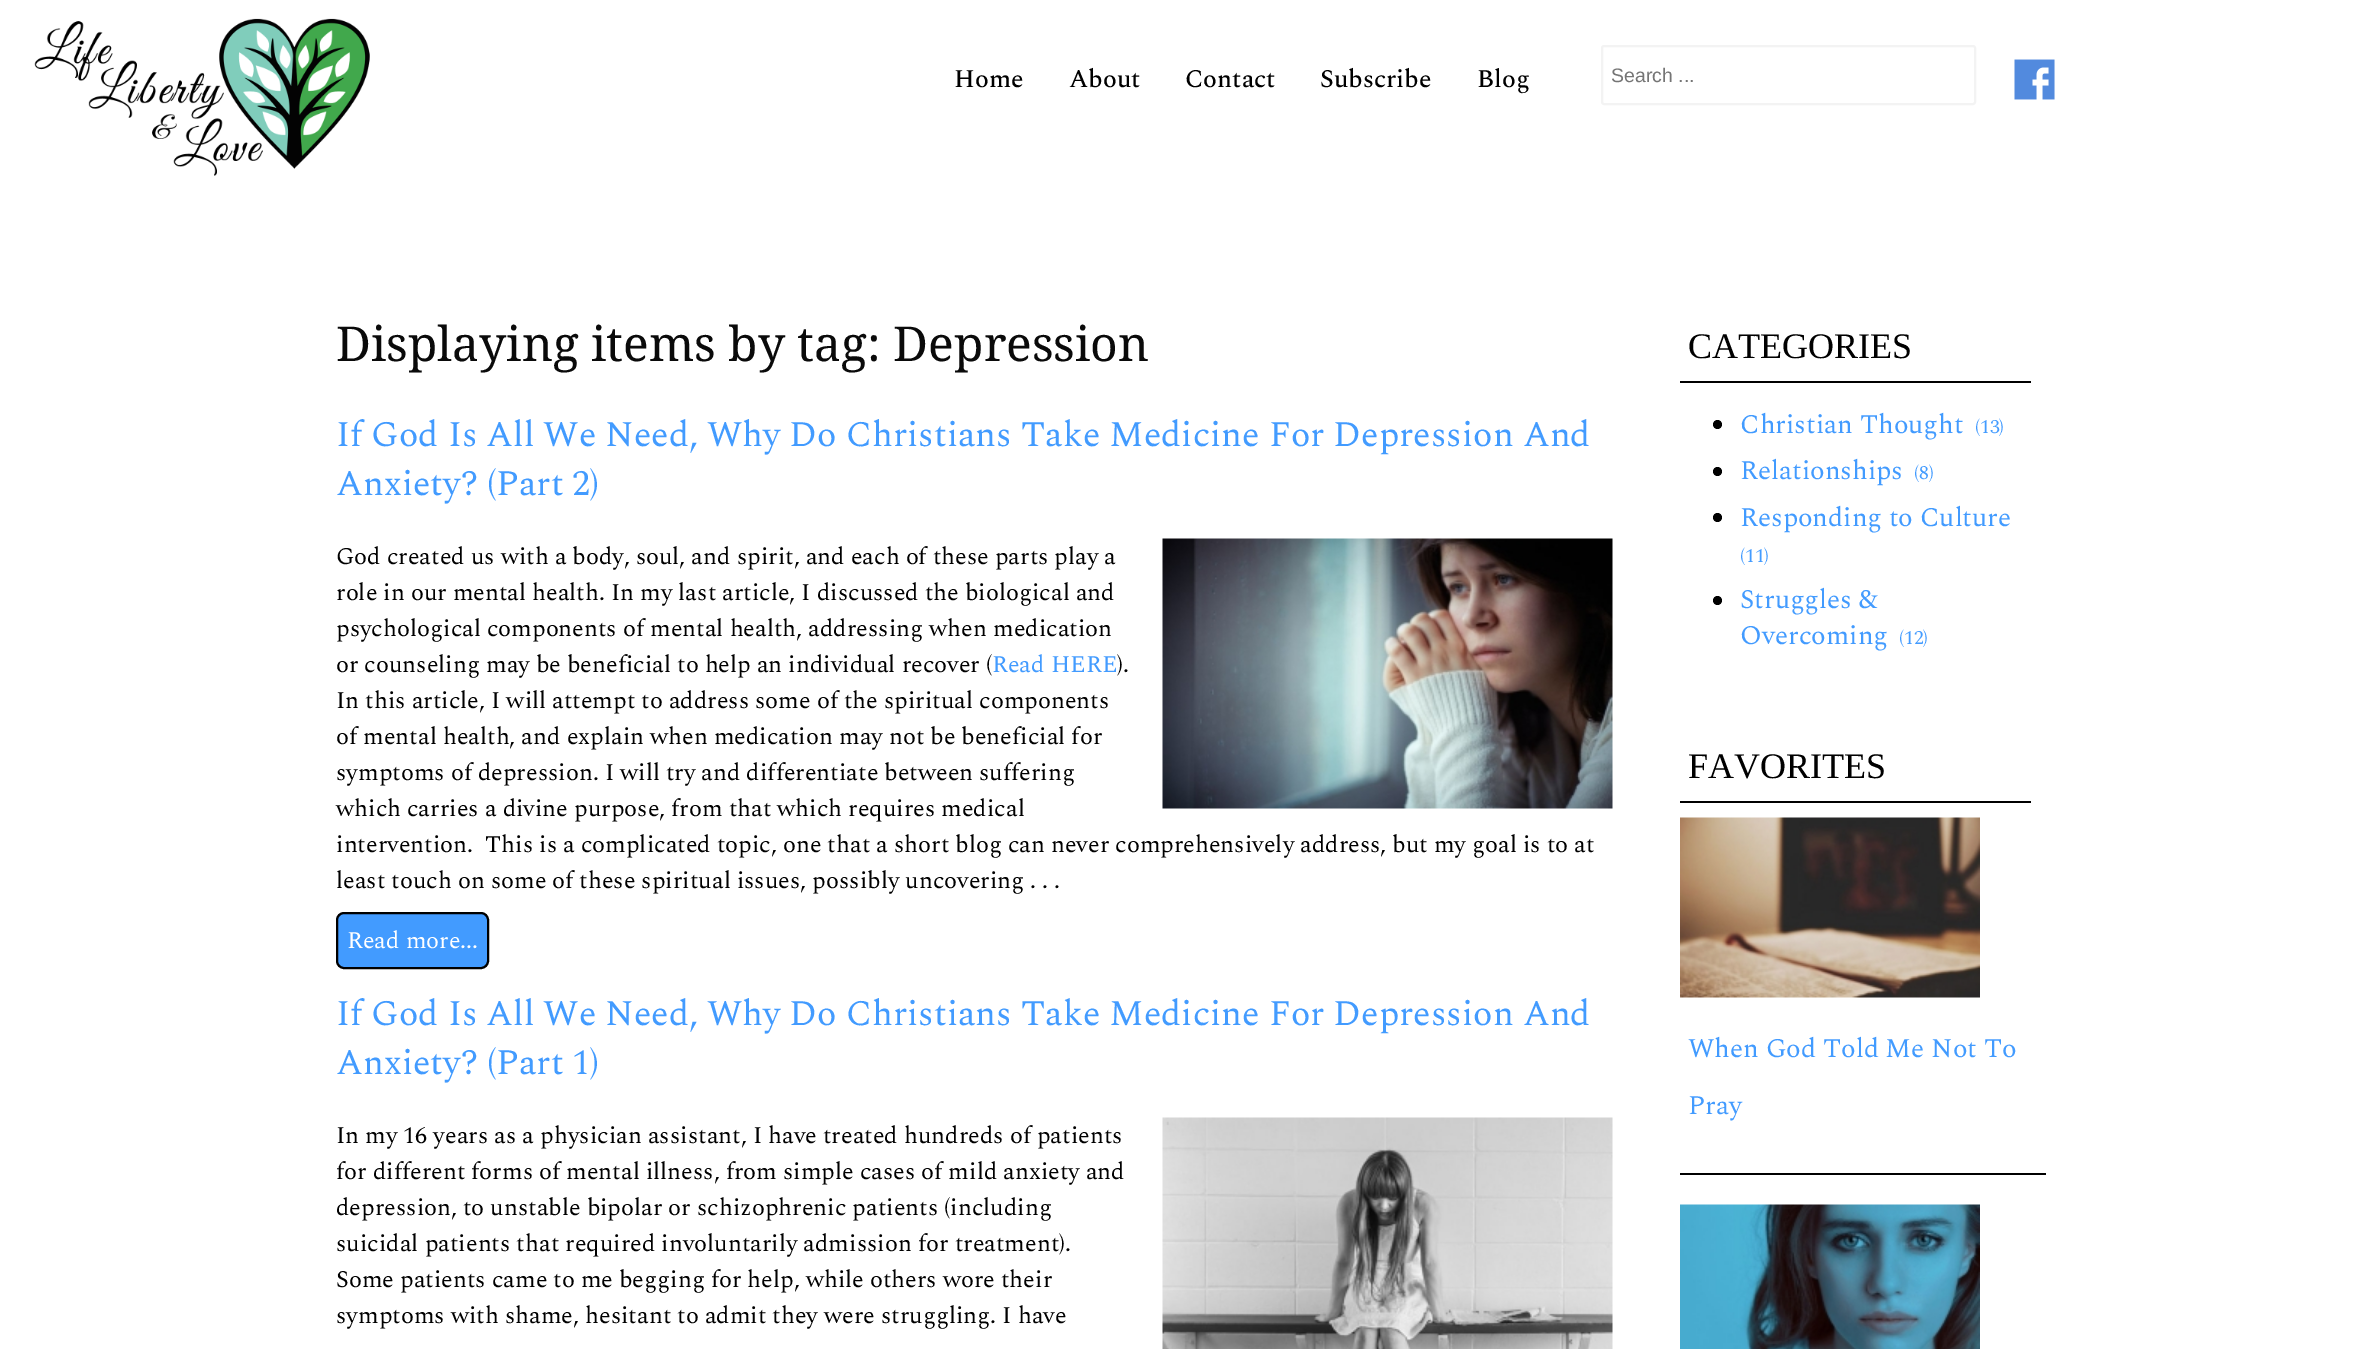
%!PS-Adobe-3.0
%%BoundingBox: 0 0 2367 1349
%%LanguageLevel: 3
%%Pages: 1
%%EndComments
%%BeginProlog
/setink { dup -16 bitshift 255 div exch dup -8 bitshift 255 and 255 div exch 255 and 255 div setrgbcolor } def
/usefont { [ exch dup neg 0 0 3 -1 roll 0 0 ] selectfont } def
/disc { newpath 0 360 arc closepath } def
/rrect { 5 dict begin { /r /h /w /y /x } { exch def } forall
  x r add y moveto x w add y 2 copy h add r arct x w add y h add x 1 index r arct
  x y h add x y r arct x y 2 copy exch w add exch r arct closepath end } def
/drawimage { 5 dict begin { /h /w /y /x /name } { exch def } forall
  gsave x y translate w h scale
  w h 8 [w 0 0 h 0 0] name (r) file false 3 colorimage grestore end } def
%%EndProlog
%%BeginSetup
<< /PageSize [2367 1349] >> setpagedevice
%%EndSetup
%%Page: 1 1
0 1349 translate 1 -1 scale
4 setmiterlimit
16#FFFFFF setink
0 0 2367 1349 rectfill
(img1.raw) 34 18 336 158 drawimage
/Spectral-Medium 25.5 usefont
16#000000 setink
[
    [(Home) 954 87]
    [(About) 1069 87]
    [(Contact) 1185 87]
    [(Subscribe) 1320 87]
    [(Blog) 1477 87]
] { aload pop moveto show } forall
16#F3F3F3 setink
2 setlinewidth
1602 46 373 58 2 rrect stroke
/LiberationSans-Regular 19.5 usefont
16#757575 setink
1611 82 moveto (Search ...) show
(img2.raw) 2014 59 41 41 drawimage
/DroidSerif-Regular 48 usefont
16#0A0A0A setink
336 361 moveto (Displaying items by tag: Depression) show
/Spectral-Regular 36 usefont
16#429BFF setink
336 446 moveto (If God Is All We Need, Why Do Christians Take Medicine For Depression And) show
336 495 moveto (Anxiety? \(Part 2\)) show
(img3.raw) 1162 538 451 271 drawimage
/Spectral-Regular 24 usefont
16#000000 setink
[
    [(God created us with a body, soul, and spirit, and each of these parts play a) 336 564]
    [(role in our mental health. In my last article, I discussed the biological and) 336 600]
    [(psychological components of mental health, addressing when medication) 336 636]
    [(or counseling may be beneficial to help an individual recover \() 336 672]
] { aload pop moveto show } forall
16#429BFF setink
992 672 moveto (Read HERE) show
16#000000 setink
[
    [(\).) 1117 672]
    [(In this article, I will attempt to address some of the spiritual components) 336 708]
    [(of mental health, and explain when medication may not be beneficial for) 336 744]
    [(symptoms of depression. I will try and differentiate between suffering) 336 780]
    [(which carries a divine purpose, from that which requires medical) 336 816]
    [(intervention.  This is a complicated topic, one that a short blog can never comprehensively address, but my goal is to at) 336 852]
    [(least touch on some of these spiritual issues, possibly uncovering . . .) 336 888]
] { aload pop moveto show } forall
16#429BFF setink
337 913 151 55 7 rrect gsave fill grestore
16#000000 setink
stroke
16#FFFFFF setink
347 948 moveto (Read more...) show
/Spectral-Regular 36 usefont
16#429BFF setink
336 1025 moveto (If God Is All We Need, Why Do Christians Take Medicine For Depression And) show
336 1074 moveto (Anxiety? \(Part 1\)) show
/Spectral-Regular 24 usefont
16#000000 setink
[
    [(In my 16 years as a physician assistant, I have treated hundreds of patients) 336 1143]
    [(for different forms of mental illness, from simple cases of mild anxiety and) 336 1179]
    [(depression, to unstable bipolar or schizophrenic patients \(including) 336 1215]
    [(suicidal patients that required involuntarily admission for treatment\).) 336 1251]
    [(Some patients came to me begging for help, while others wore their) 336 1287]
    [(symptoms with shame, hesitant to admit they were struggling. I have) 336 1323]
] { aload pop moveto show } forall
(img4.raw) 1162 1117 451 232 drawimage
1680 381 351 2 rectfill
/LiberationSerif-Regular 36 usefont
1688 358 moveto (CATEGORIES) show
1717.5 424.5 4.5 disc fill
/Spectral-Regular 27 usefont
16#429BFF setink
1740 433 moveto (Christian Thought) show
/Spectral-Regular 19.5 usefont
1975 433 moveto (\(13\)) show
16#000000 setink
1717.5 471.5 4.5 disc fill
/Spectral-Regular 27 usefont
16#429BFF setink
1740 479 moveto (Relationships) show
/Spectral-Regular 19.5 usefont
1914 479 moveto (\(8\)) show
16#000000 setink
1717.5 517.5 4.5 disc fill
/Spectral-Regular 27 usefont
16#429BFF setink
1740 526 moveto (Responding to Culture) show
/Spectral-Regular 19.5 usefont
1740 562 moveto (\(11\)) show
16#000000 setink
1717.5 600.5 4.5 disc fill
/Spectral-Regular 27 usefont
16#429BFF setink
1740 608 moveto (Struggles &) show
1740 644 moveto (Overcoming) show
/Spectral-Regular 19.5 usefont
1899 644 moveto (\(12\)) show
16#000000 setink
1680 801 351 2 rectfill
/LiberationSerif-Regular 36 usefont
1688 778 moveto (FAVORITES) show
(img5.raw) 1680 817 300 181 drawimage
1680 1173 366 2 rectfill
/Spectral-Regular 27 usefont
16#429BFF setink
1688 1057 moveto (When God Told Me Not To) show
1688 1114 moveto (Pray) show
(img6.raw) 1680 1204 300 145 drawimage
showpage
%%EOF
